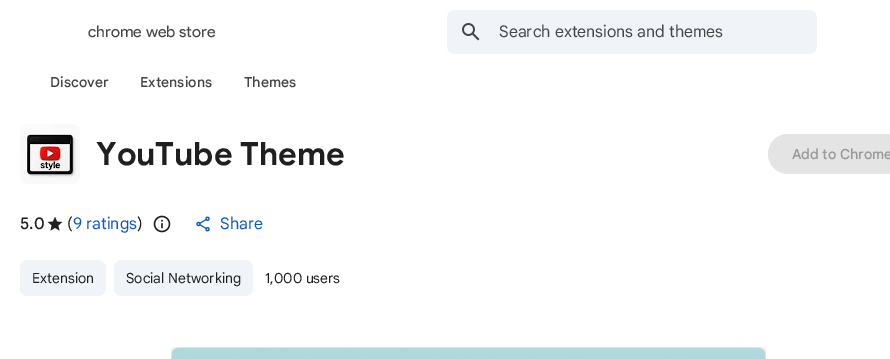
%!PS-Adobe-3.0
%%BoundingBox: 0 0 890 359
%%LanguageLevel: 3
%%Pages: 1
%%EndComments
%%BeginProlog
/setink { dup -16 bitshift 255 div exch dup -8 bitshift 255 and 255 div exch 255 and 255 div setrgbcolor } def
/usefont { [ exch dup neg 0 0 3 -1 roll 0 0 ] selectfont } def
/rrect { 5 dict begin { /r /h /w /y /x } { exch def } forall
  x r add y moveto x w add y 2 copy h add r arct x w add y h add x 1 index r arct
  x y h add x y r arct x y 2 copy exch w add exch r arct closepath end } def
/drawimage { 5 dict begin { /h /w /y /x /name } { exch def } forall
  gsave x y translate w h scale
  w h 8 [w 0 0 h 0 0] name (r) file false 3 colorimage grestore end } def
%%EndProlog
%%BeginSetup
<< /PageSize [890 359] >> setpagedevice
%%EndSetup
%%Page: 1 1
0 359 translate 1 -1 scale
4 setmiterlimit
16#FFFFFF setink
0 0 890 359 rectfill
(img1.raw) 61 21 6 1 drawimage
/ProductSans-Regular 16 usefont
16#444746 setink
88 37 moveto (chrome web store) show
16#F0F4F9 setink
447 10 370 44 8 rrect fill
(img2.raw) 462 23 18 18 drawimage
/GoogleSans-Regular 16 usefont
16#444746 setink
499 37 moveto (Search extensions and themes) show
/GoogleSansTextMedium-Medium 14 usefont
[
    [(Discover) 50 87]
    [(Extensions) 140 87]
    [(Themes) 244 87]
] { aload pop moveto show } forall
(img3.raw) 20 124 60 60 drawimage
/GoogleSans-Bold 32 usefont
16#1F1F1F setink
96 165 moveto (YouTube Theme) show
16#E4E4E4 setink
768 134 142 40 20 rrect fill
/GoogleSansTextMedium-Medium 14 usefont
16#999999 setink
792 159 moveto (Add to Chrome) show
/GoogleSans-Medium 16 usefont
16#1F1F1F setink
20 229 moveto (5.0) show
(img4.raw) 47 216 16 15 drawimage
/GoogleSans-Regular 16 usefont
67 229 moveto (\() show
16#0B57D0 setink
73 229 moveto (9 ratings) show
16#1F1F1F setink
137 229 moveto (\)) show
(img5.raw) 153 215 18 18 drawimage
(img6.raw) 196 216 14 16 drawimage
/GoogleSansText-Regular 16 usefont
16#0B57D0 setink
220 229 moveto (Share) show
16#F0F4F9 setink
20 260 86 36 8 rrect fill
/GoogleSans-Regular 14 usefont
16#1F1F1F setink
32 283 moveto (Extension) show
16#F0F4F9 setink
114 260 139 36 8 rrect fill
16#1F1F1F setink
126 283 moveto (Social Networking) show
265 283 moveto (1,000 users) show
(img7.raw) 171 347 595 12 drawimage
showpage
%%EOF
